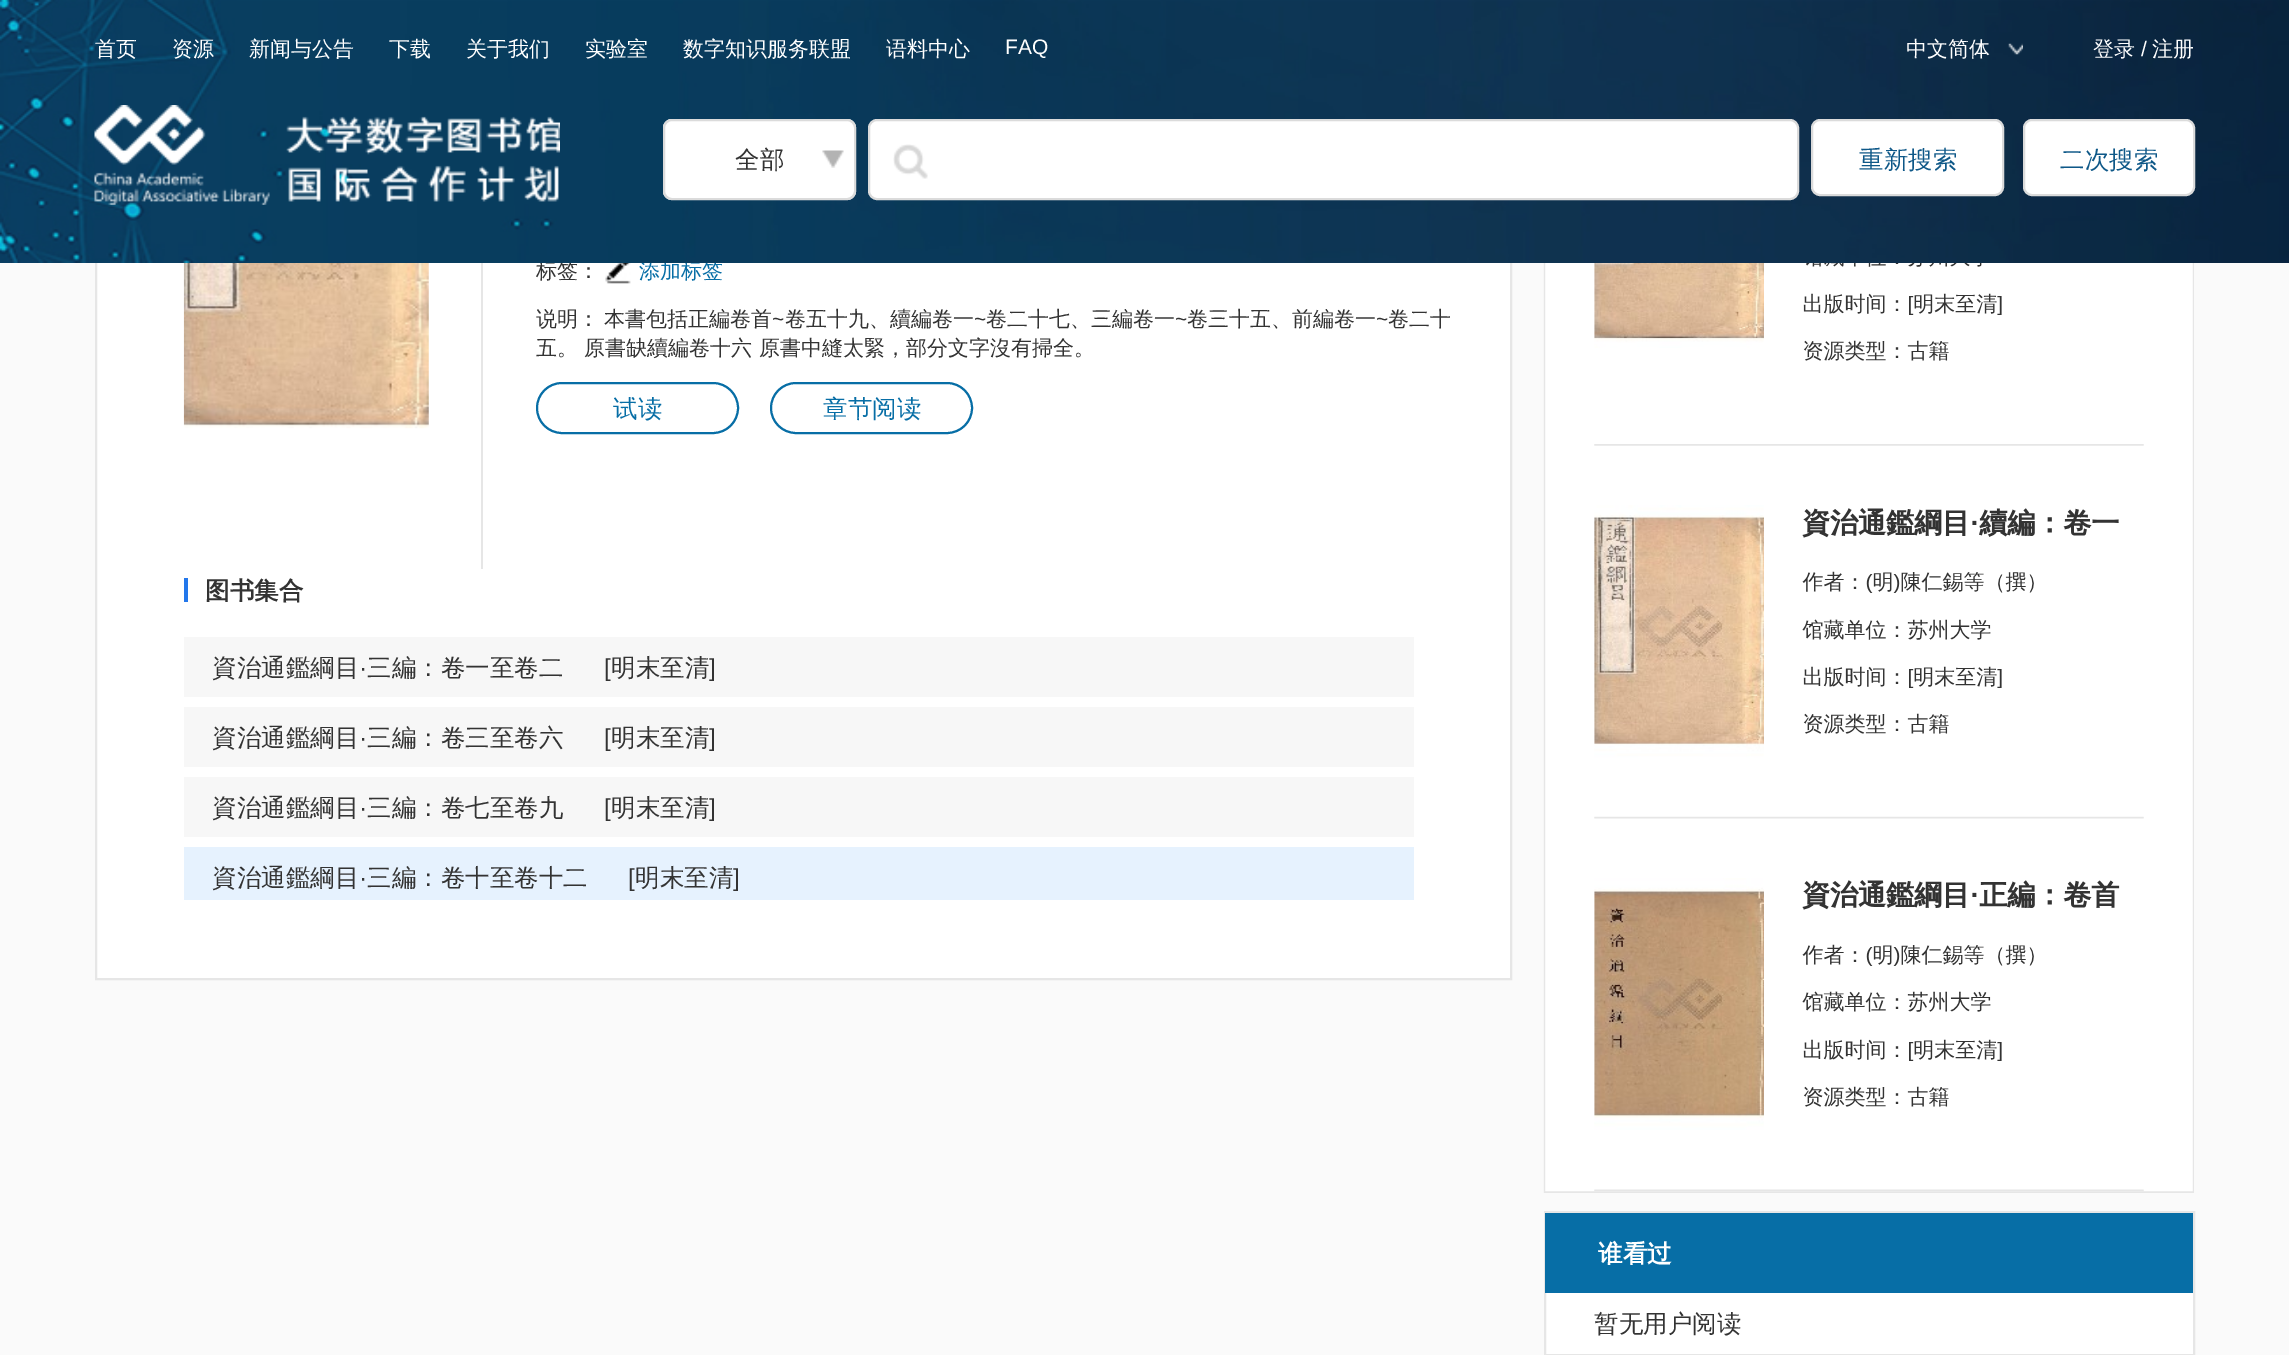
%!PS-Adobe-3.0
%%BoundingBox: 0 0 2289 1355
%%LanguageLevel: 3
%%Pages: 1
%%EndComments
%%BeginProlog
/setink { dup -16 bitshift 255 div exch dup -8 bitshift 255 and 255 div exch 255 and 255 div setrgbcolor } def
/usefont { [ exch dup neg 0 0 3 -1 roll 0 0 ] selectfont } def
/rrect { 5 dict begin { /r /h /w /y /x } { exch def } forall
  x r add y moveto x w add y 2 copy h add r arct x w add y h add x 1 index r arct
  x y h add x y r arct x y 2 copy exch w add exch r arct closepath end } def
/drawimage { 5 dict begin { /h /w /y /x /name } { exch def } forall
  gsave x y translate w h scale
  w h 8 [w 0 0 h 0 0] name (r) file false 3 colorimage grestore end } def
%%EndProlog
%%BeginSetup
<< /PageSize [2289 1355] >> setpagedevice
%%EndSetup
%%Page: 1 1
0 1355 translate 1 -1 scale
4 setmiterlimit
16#FAFAFA setink
0 0 2289 1355 rectfill
16#FFFFFF setink
97 263 1413 715 rectfill
16#E6E6E6 setink
2 setlinewidth
96 -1 1415 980 rectstroke
/WenQuanYiZenHei-Medium 21 usefont
16#333333 setink
536 278 moveto (标签：) show
16#076EA6 setink
639 278 moveto (添加标签) show
(img1.raw) 0 0 2289 263 drawimage
16#FFFFFF setink
[
    [(首页) 95 56]
    [(资源) 172 56]
    [(新闻与公告) 249 56]
    [(下载) 389 56]
    [(关于我们) 466 56]
    [(实验室) 585 56]
    [(数字知识服务联盟) 683 56]
    [(语料中心) 886 56]
] { aload pop moveto show } forall
/LiberationSans-Regular 21 usefont
1005 54 moveto (FAQ) show
/WenQuanYiZenHei-Medium 21 usefont
1906 56 moveto (中文简体) show
(img2.raw) 2008 43 15 12 drawimage
2093 56 moveto (登录) show
/LiberationSans-Regular 21 usefont
2141 56 moveto (/) show
/WenQuanYiZenHei-Medium 21 usefont
2152 56 moveto (注册) show
(img3.raw) 94 105 466 100 drawimage
663 119 193 81 9 rrect fill
(img4.raw) 822 150 22 18 drawimage
16#DBDBDB setink
664 120 191 79 8 rrect stroke
/WenQuanYiZenHei-Medium 24.5 usefont
16#333333 setink
735 168 moveto (全部) show
16#FFFFFF setink
869 120 929 79 8 rrect gsave fill grestore
16#DBDBDB setink
stroke
(img5.raw) 893 144 35 35 drawimage
16#FFFFFF setink
1812 120 191 75 8 rrect gsave fill grestore
16#DBDBDB setink
stroke
16#0E5888 setink
1859 168 moveto (重新搜索) show
16#FFFFFF setink
2024 120 170 75 8 rrect gsave fill grestore
16#DBDBDB setink
stroke
16#0E5888 setink
2060 168 moveto (二次搜索) show
16#E6E6E6 setink
481 263 2 306 rectfill
(img6.raw) 183 263 246 166 drawimage
(img7.raw) 605 263 26 21 drawimage
/WenQuanYiZenHei-Medium 21 usefont
16#333333 setink
536 326 moveto (说明：) show
604 326 moveto (本書包括正編卷首) show
/LiberationSans-Regular 21 usefont
772 326 moveto (~) show
/WenQuanYiZenHei-Medium 21 usefont
785 326 moveto (卷五十九、續編卷一) show
/LiberationSans-Regular 21 usefont
974 326 moveto (~) show
/WenQuanYiZenHei-Medium 21 usefont
986 326 moveto (卷二十七、三編卷一) show
/LiberationSans-Regular 21 usefont
1175 326 moveto (~) show
/WenQuanYiZenHei-Medium 21 usefont
1187 326 moveto (卷三十五、前編卷一) show
/LiberationSans-Regular 21 usefont
1376 326 moveto (~) show
/WenQuanYiZenHei-Medium 21 usefont
1388 326 moveto (卷二十) show
536 355 moveto (五。 原書缺續編卷十六 原書中縫太緊，部分文字沒有掃全。) show
16#076EA6 setink
537 383 201 50 25 rrect stroke
/WenQuanYiZenHei-Medium 24.5 usefont
613 417 moveto (试读) show
771 383 201 50 25 rrect stroke
823 417 moveto (章节阅读) show
16#2377EB setink
184 578 4 24 rectfill
/WenQuanYiZenHei-Bold 24.5 usefont
16#333333 setink
205 599 moveto (图书集合) show
16#F7F7F7 setink
184 637 1230 60 rectfill
/WenQuanYiZenHei-Medium 24.5 usefont
16#333333 setink
212 676 moveto (資治通鑑綱目) show
/LiberationSans-Regular 24.5 usefont
359 676 moveto (·) show
/WenQuanYiZenHei-Medium 24.5 usefont
367 676 moveto (三編：卷一至卷二) show
/LiberationSans-Regular 24.5 usefont
604 676 moveto ([) show
/WenQuanYiZenHei-Medium 24.5 usefont
611 676 moveto (明末至清) show
/LiberationSans-Regular 24.5 usefont
709 676 moveto (]) show
16#F7F7F7 setink
184 707 1230 60 rectfill
/WenQuanYiZenHei-Medium 24.5 usefont
16#333333 setink
212 746 moveto (資治通鑑綱目) show
/LiberationSans-Regular 24.5 usefont
359 746 moveto (·) show
/WenQuanYiZenHei-Medium 24.5 usefont
367 746 moveto (三編：卷三至卷六) show
/LiberationSans-Regular 24.5 usefont
604 746 moveto ([) show
/WenQuanYiZenHei-Medium 24.5 usefont
611 746 moveto (明末至清) show
/LiberationSans-Regular 24.5 usefont
709 746 moveto (]) show
16#F7F7F7 setink
184 777 1230 60 rectfill
/WenQuanYiZenHei-Medium 24.5 usefont
16#333333 setink
212 816 moveto (資治通鑑綱目) show
/LiberationSans-Regular 24.5 usefont
359 816 moveto (·) show
/WenQuanYiZenHei-Medium 24.5 usefont
367 816 moveto (三編：卷七至卷九) show
/LiberationSans-Regular 24.5 usefont
604 816 moveto ([) show
/WenQuanYiZenHei-Medium 24.5 usefont
611 816 moveto (明末至清) show
/LiberationSans-Regular 24.5 usefont
709 816 moveto (]) show
16#E6F2FE setink
184 847 1230 53 rectfill
/WenQuanYiZenHei-Medium 24.5 usefont
16#333333 setink
212 886 moveto (資治通鑑綱目) show
/LiberationSans-Regular 24.5 usefont
359 886 moveto (·) show
/WenQuanYiZenHei-Medium 24.5 usefont
367 886 moveto (三編：卷十至卷十二) show
/LiberationSans-Regular 24.5 usefont
628 886 moveto ([) show
/WenQuanYiZenHei-Medium 24.5 usefont
635 886 moveto (明末至清) show
/LiberationSans-Regular 24.5 usefont
733 886 moveto (]) show
(img8.raw) 1543 263 651 930 drawimage
16#FFFFFF setink
1546 1293 647 61 rectfill
16#E6E6E6 setink
1545 1212 649 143 rectstroke
16#076EA6 setink
1545 1213 648 80 rectfill
/WenQuanYiZenHei-Bold 24.5 usefont
16#FFFFFF setink
1598 1262 moveto (谁看过) show
/WenQuanYiZenHei-Medium 24.5 usefont
16#333333 setink
1594 1332 moveto (暂无用户阅读) show
showpage
%%EOF
